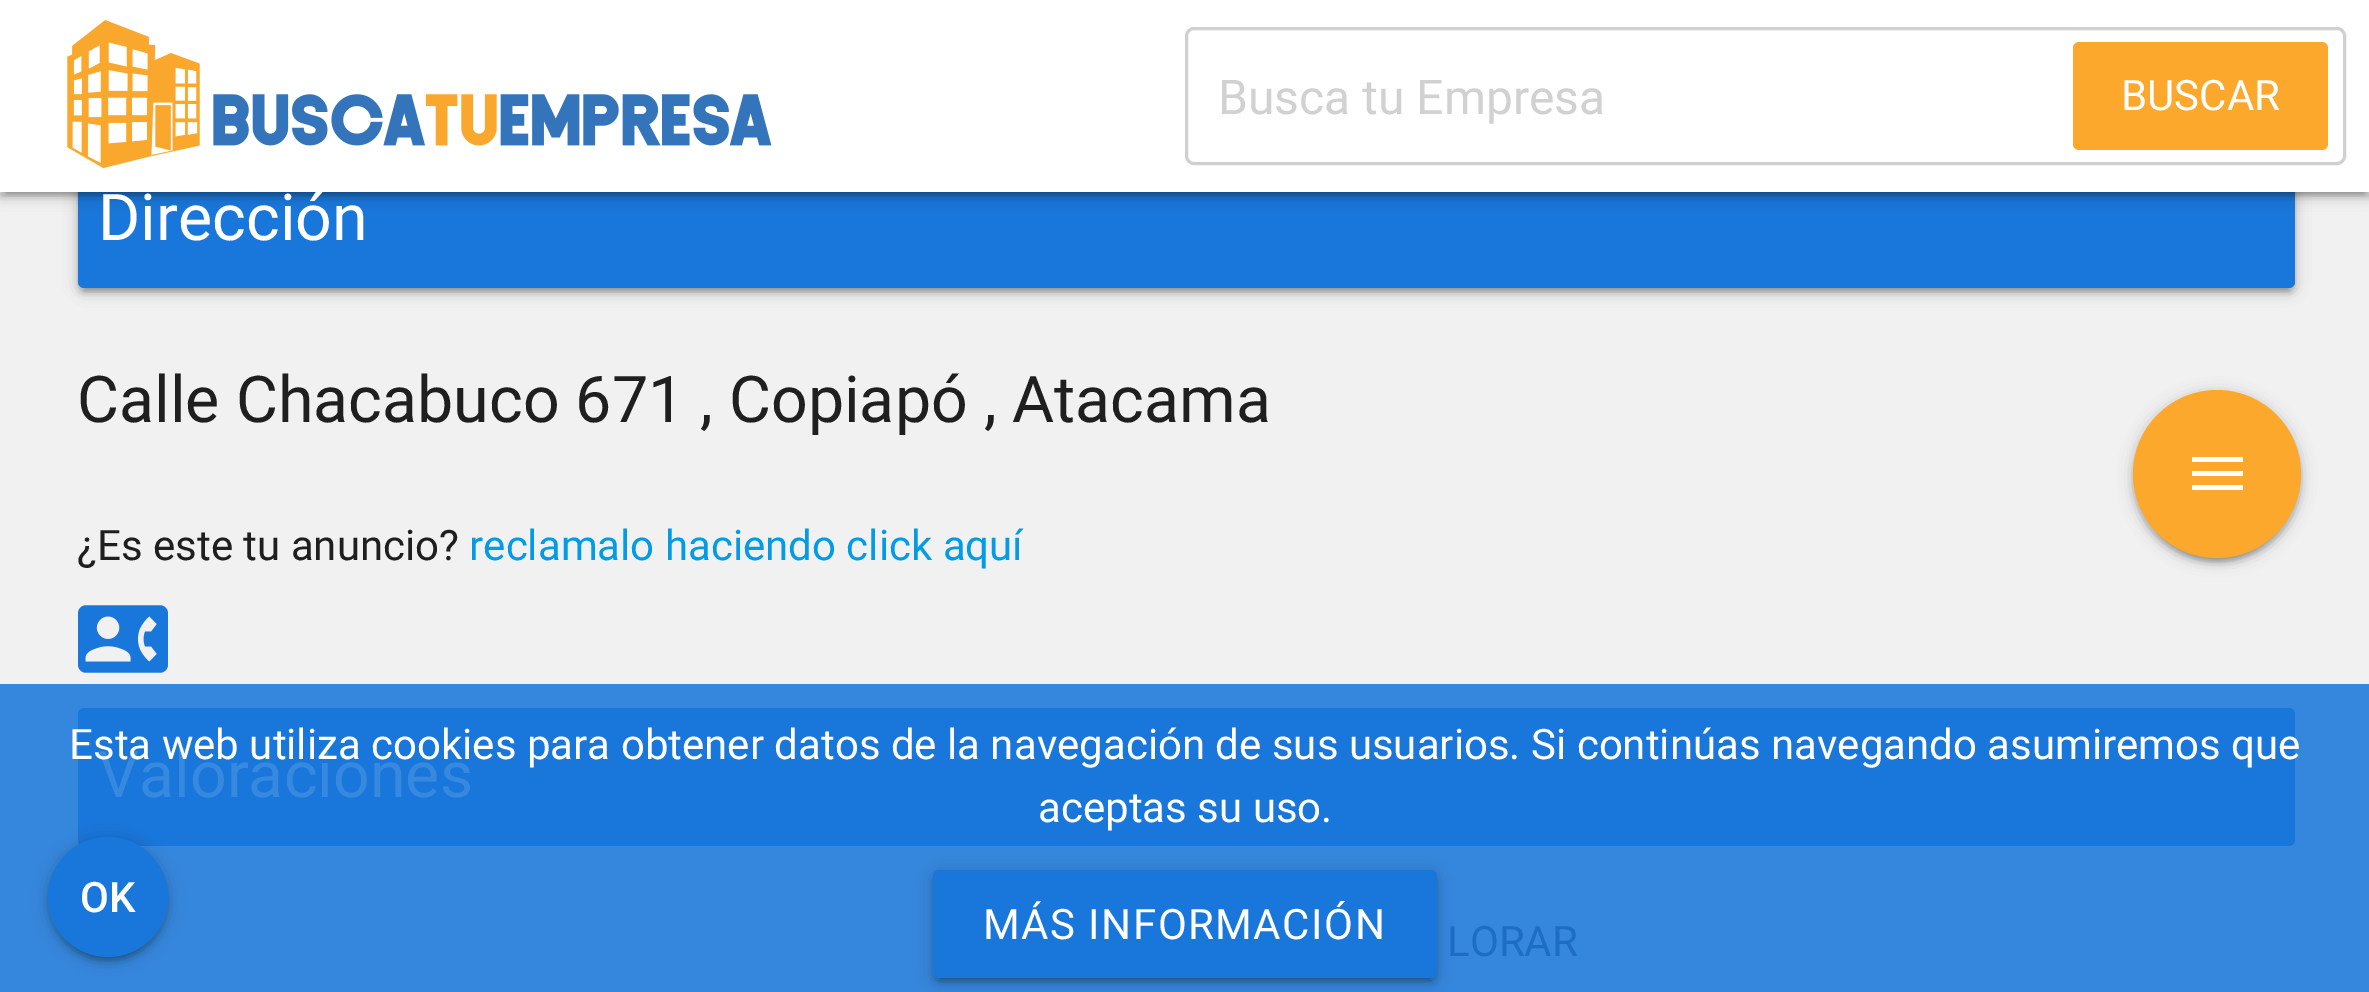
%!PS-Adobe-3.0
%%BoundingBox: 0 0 2369 992
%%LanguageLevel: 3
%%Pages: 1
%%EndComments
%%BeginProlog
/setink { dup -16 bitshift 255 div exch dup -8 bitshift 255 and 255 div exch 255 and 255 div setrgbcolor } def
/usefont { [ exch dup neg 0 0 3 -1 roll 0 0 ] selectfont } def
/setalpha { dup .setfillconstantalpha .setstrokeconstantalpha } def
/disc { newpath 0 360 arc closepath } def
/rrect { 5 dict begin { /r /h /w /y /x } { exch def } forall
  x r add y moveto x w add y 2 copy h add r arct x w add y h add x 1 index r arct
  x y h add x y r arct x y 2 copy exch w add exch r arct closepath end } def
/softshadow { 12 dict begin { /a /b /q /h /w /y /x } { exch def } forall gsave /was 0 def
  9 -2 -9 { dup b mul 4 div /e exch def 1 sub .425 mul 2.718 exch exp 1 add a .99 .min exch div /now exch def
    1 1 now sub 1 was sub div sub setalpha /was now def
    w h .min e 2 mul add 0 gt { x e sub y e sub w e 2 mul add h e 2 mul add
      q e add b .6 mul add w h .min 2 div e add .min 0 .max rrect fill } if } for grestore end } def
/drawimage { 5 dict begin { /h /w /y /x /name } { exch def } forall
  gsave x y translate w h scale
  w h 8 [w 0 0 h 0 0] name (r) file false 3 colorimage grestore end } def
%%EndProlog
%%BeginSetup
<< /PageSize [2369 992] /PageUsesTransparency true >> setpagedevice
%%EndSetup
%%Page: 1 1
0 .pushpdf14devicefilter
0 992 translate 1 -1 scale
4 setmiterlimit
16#F2F1F1 setink
0 0 2369 992 rectfill
16#3586DD setink
0 684 2369 308 rectfill
16#000000 setink
78 153 2217 138 6 7.5 0.2 softshadow
84 165 2205 126 0 1.5 0.12 softshadow
78 156 2217 138 6 3 0.14 softshadow
16#1976DA setink
78 150 2217 138 6 rrect fill
16#000000 setink
0 3 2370 192 0 7.5 0.2 softshadow
6 15 2358 180 0 1.5 0.12 softshadow
0 6 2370 192 0 3 0.14 softshadow
16#FFFFFF setink
0 0 2369 192 rectfill
(img1.raw) 67 20 705 149 drawimage
16#D0D0D0 setink
3 setlinewidth
1186.5 28.5 1158 135 7.5 rrect stroke
/Roboto-Regular 48 usefont
16#D1D1D1 setink
1218 114 moveto (Busca tu Empresa) show
16#FCA82D setink
2073 42 255 108 6 rrect fill
/Roboto-Regular 42 usefont
16#FFFFFF setink
2121 110 moveto (BUSCAR) show
/Roboto-Regular 64.5 usefont
98 240 moveto (Dirección) show
16#1F1F1F setink
77 422 moveto (Calle Chacabuco 671 , Copiapó , Atacama) show
/Roboto-Regular 42 usefont
77 560 moveto (¿Es este tu anuncio?) show
16#039BE5 setink
469 560 moveto (reclamalo haciendo click aquí) show
(img2.raw) 78 605 90 68 drawimage
16#1976DA setink
78 708 2217 138 6 rrect fill
/Roboto-Regular 64.5 usefont
16#3788DF setink
98 797 moveto (Valoraciones) show
/Roboto-Regular 42 usefont
16#1D6DC4 setink
1447 956 moveto (LORAR) show
16#000000 setink
2133 393 168 168 84 7.5 0.2 softshadow
2139 405 156 156 78 1.5 0.12 softshadow
2133 396 168 168 84 3 0.14 softshadow
16#FCA82D setink
2217 474 84 disc fill
16#FFFFFF setink
2192 457 moveto 2243 457 lineto 2243 462 lineto 2192 462 lineto closepath 2192 476 moveto 2192 471 lineto 2243 471 lineto 2243 476 lineto closepath 2192 490 moveto 2192 485 lineto 2243 485 lineto 2243 490 lineto closepath fill
69 759 moveto (Esta web utiliza cookies para obtener datos de la navegación de sus usuarios. Si continúas navegando asumiremos que) show
1038 822 moveto (aceptas su uso.) show
16#000000 setink
48 840 120 120 60 7.5 0.2 softshadow
54 852 108 108 54 1.5 0.12 softshadow
48 843 120 120 60 3 0.14 softshadow
16#1976DA setink
108 897 60 disc fill
/Roboto-Medium 42 usefont
16#FFFFFF setink
80 912 moveto (OK) show
16#000000 setink
933 873 504 108 6 7.5 0.2 softshadow
939 885 492 96 0 1.5 0.12 softshadow
933 876 504 108 6 3 0.14 softshadow
16#1976DA setink
933 870 504 108 6 rrect fill
/Roboto-Regular 42 usefont
16#FFFFFF setink
983 939 moveto 1.5 0 (MÁS INFORMACIÓN) ashow
.poppdf14devicefilter showpage
%%EOF
